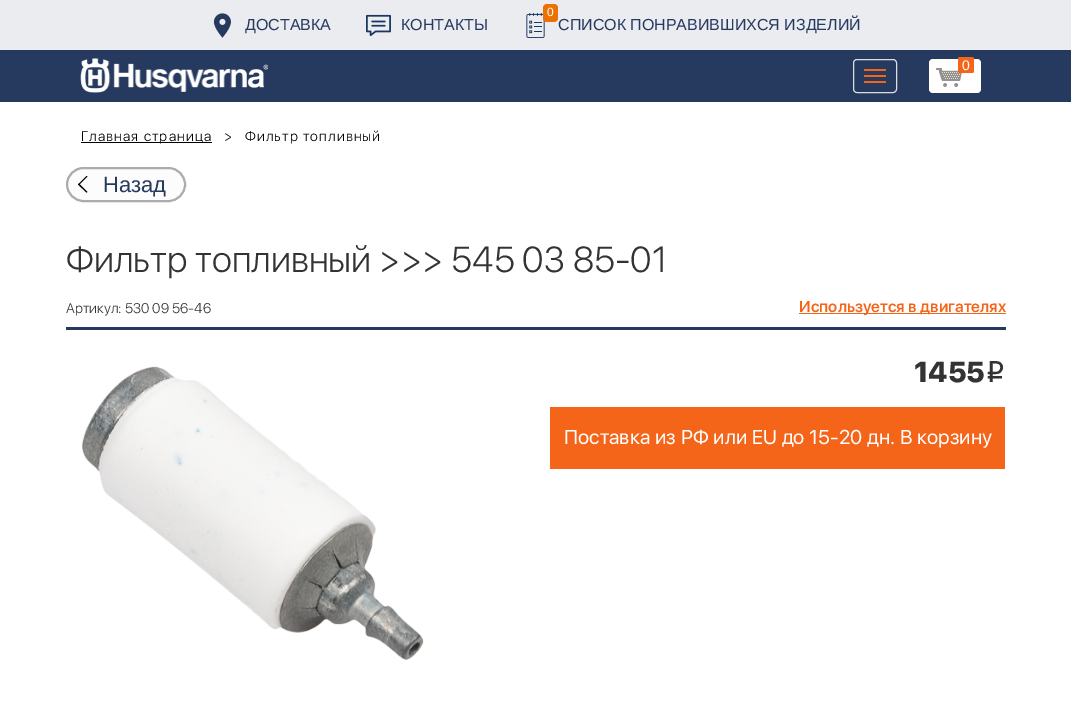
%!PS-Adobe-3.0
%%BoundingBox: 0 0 1071 703
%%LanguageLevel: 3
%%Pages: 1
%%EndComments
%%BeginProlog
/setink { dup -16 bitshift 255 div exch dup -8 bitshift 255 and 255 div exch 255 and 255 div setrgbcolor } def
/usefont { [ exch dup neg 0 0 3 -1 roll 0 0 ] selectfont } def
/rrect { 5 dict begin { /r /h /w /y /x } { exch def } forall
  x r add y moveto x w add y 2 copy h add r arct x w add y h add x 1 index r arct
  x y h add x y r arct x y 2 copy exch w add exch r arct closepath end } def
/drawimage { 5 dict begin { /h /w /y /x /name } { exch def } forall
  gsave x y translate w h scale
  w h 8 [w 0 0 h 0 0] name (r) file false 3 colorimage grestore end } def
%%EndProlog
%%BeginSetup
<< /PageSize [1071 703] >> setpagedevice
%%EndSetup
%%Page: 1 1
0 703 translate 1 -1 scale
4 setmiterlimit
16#FFFFFF setink
0 0 1071 703 rectfill
16#EAECF0 setink
0 0 1071 50 rectfill
(img1.raw) 213 13 18 25 drawimage
/LiberationSans-Regular 16 usefont
16#263A5F setink
245 30 moveto (ДОСТАВКА) show
(img2.raw) 366 14 25 23 drawimage
401 30 moveto (КОНТАКТЫ) show
(img3.raw) 526 13 19 25 drawimage
16#ED7102 setink
543 4 15 18 4 rrect fill
/LiberationSans-Regular 12 usefont
16#FFFFFF setink
547 16 moveto (0) show
/LiberationSans-Regular 16 usefont
16#263A5F setink
558 30 moveto (СПИСОК ПОНРАВИВШИХСЯ ИЗДЕЛИЙ) show
0 50 1071 52 rectfill
(img4.raw) 80 58 188 35 drawimage
16#DDDDDD setink
853.5 59.5 43 33 3.5 rrect stroke
16#F4651A setink
864 69 22 2 1 rrect fill
864 75 22 2 1 rrect fill
864 81 22 2 1 rrect fill
16#FFFFFF setink
929 59 52 34 4 rrect fill
(img5.raw) 936 68 26 19 drawimage
16#F4651A setink
958 57 16 16 2 rrect fill
/LiberationSans-Regular 14 usefont
16#FFFFFF setink
962 70 moveto (0) show
16#000000 setink
81 142 131 1 rectfill
/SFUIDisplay-Light 14 usefont
81 141 moveto 1.1 0 (Главная страница) ashow
224 141 moveto 1.1 0 (>) ashow
245 141 moveto 1.1 0 (Фильтр топливный) ashow
16#FCFCFC setink
67 168 118 33 16.5 rrect gsave fill grestore
16#ACACAC setink
2 setlinewidth
stroke
16#000000 setink
78 184.5 moveto 86.5 176 lineto 87.5 176.5 lineto 79 185 lineto closepath fill
78 184.5 moveto 79 183.5 lineto 87.5 192 lineto 86.5 192.5 lineto closepath fill
/LiberationSans-Regular 22 usefont
16#263A5F setink
103 192 moveto (Назад) show
/SFUIDisplay-Light 36 usefont
16#333333 setink
66 272 moveto (Фильтр топливный >>> 545 03 85-01) show
/SFUIDisplay-Light 14 usefont
66 313 moveto (Артикул: 530 09 56-46) show
16#F4651A setink
799 313 207 1 rectfill
/SFUIDisplay-SemiBold 16 usefont
799 312 moveto (Используется в двигателях) show
16#263A5F setink
66 327 940 3 rectfill
(img6.raw) 82 366 342 294 drawimage
/SFUIDisplay-Black 30 usefont
16#333333 setink
914 382 moveto (1455) show
/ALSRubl-Regular 30 usefont
985 382 moveto (i) show
16#F4651A setink
550 407 455 62 rectfill
/SFUIDisplay-Regular 20 usefont
16#FFFFFF setink
564 444 moveto (Поставка из РФ или EU до 15-20 дн. В корзину) show
showpage
%%EOF
